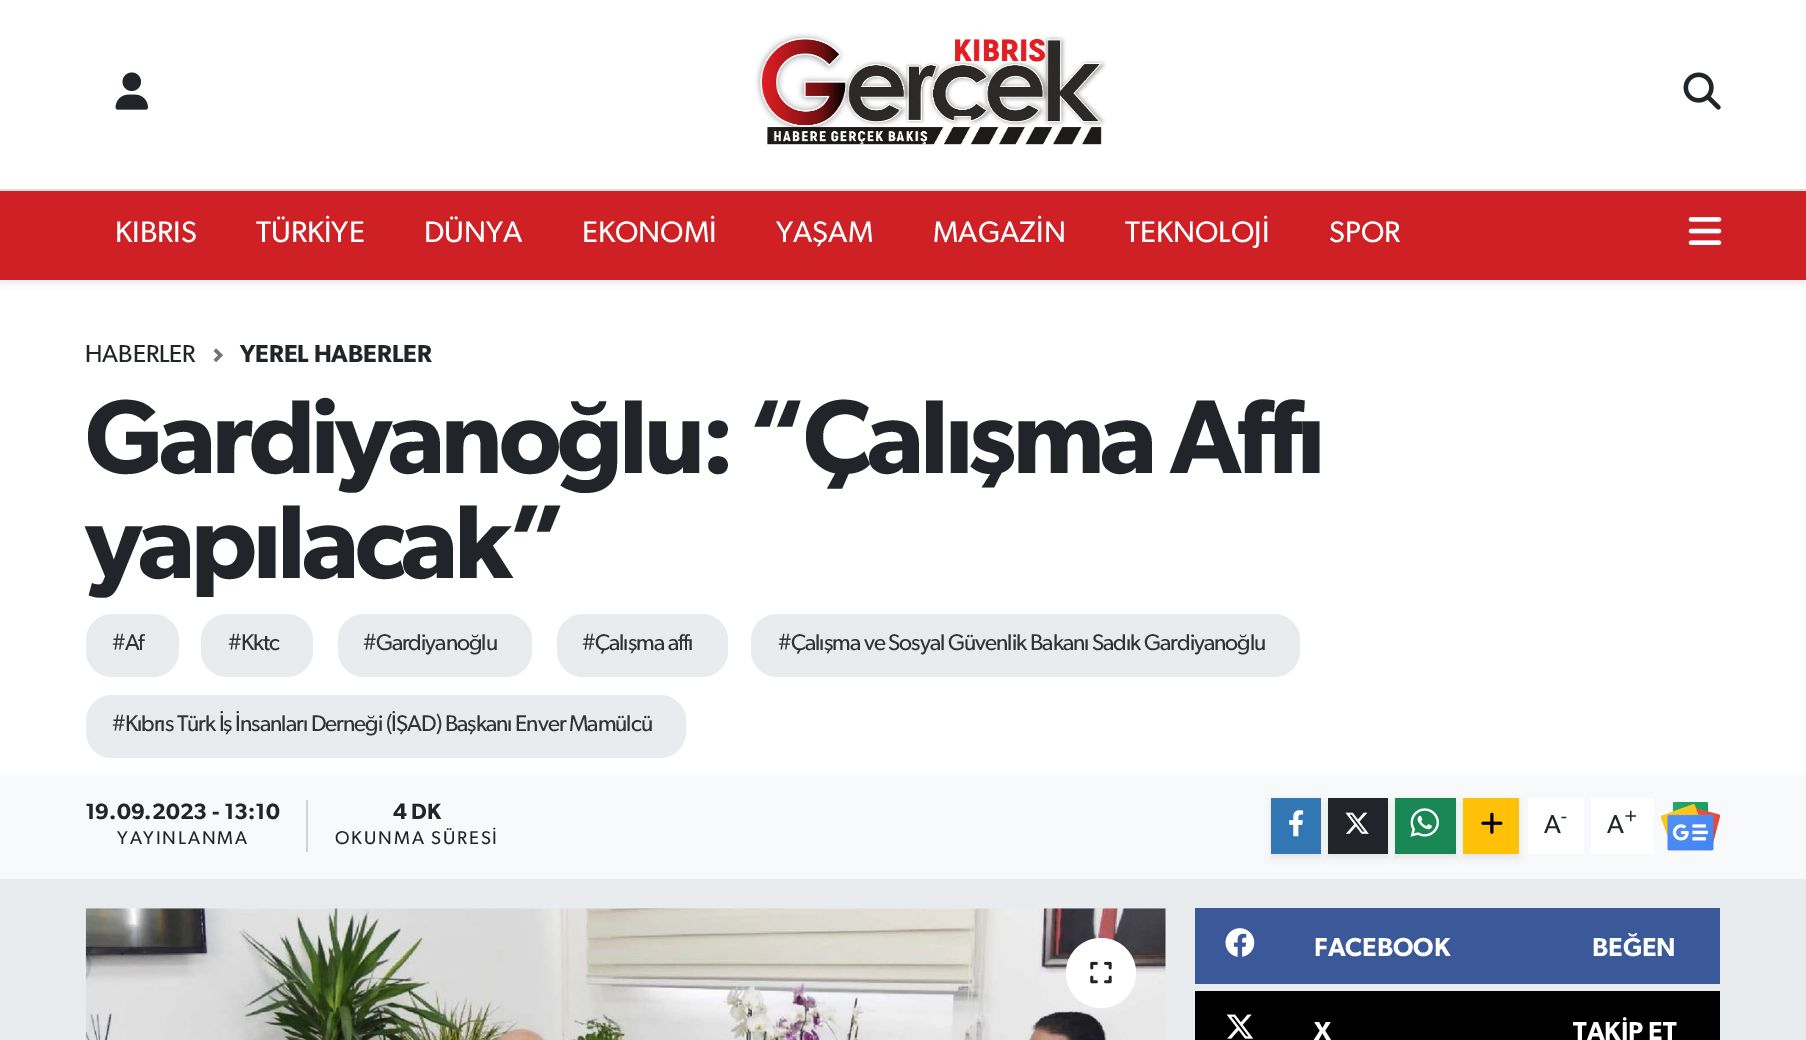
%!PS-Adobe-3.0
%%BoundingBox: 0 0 1806 1040
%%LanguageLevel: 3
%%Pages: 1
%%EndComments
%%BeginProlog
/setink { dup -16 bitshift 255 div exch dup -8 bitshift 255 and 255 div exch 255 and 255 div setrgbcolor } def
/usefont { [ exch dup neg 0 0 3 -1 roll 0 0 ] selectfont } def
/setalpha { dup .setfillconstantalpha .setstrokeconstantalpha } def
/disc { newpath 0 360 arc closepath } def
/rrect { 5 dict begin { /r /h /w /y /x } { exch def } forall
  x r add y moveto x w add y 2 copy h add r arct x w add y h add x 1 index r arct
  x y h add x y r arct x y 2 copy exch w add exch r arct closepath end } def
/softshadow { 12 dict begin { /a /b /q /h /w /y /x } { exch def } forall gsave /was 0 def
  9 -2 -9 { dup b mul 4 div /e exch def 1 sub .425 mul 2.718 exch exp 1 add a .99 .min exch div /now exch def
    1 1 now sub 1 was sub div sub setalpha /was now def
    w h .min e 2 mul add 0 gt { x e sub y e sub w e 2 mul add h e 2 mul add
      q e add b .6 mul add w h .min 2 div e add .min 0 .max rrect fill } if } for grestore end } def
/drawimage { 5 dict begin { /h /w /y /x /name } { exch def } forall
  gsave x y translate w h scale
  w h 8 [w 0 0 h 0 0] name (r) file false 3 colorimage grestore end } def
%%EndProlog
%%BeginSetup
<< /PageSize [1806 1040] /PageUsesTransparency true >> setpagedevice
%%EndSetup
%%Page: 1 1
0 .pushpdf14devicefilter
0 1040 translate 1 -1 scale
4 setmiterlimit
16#E9ECEF setink
0 0 1806 1040 rectfill
16#FFFFFF setink
0 0 1806 189 rectfill
16#DEE2E6 setink
0 189 1806 2 rectfill
(img1.raw) 115 72 33 38 drawimage
(img2.raw) 755 33 351 112 drawimage
(img3.raw) 1683 72 38 38 drawimage
16#FFFFFF setink
0 280 1806 495 rectfill
16#000000 setink
0 194 1806 90 0 3.5 0.07 softshadow
16#CE2025 setink
0 191 1806 89 rectfill
/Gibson-Regular 29.75 usefont
16#FFFFFF setink
[
    [(KIBRIS) 115 242]
    [(TÜRKİYE) 256 242]
    [(DÜNYA) 424 242]
    [(EKONOMİ) 582 242]
    [(YAŞAM) 776 242]
    [(MAGAZİN) 933 242]
    [(TEKNOLOJİ) 1125 242]
    [(SPOR) 1329 242]
] { aload pop moveto show } forall
(img4.raw) 1688 217 34 28 drawimage
/Gibson-Regular 24.5 usefont
16#212529 setink
85 362 moveto (HABERLER) show
(img5.raw) 213 348 10 14 drawimage
/Gibson-SemiBold 24.5 usefont
240 362 moveto (YEREL HABERLER) show
/Gibson-SemiBold 105 usefont
85 473 moveto -4 0 (Gardiyanoğlu: “Çalışma Affı) ashow
85 578 moveto -4 0 (yapılacak”) ashow
16#E9ECEF setink
86 614 93 63 26 rrect fill
/Gibson-Regular 22.75 usefont
16#333333 setink
112 650 moveto -0.98 0 (#Af) ashow
16#E9ECEF setink
201 614 112 63 26 rrect fill
16#333333 setink
228 650 moveto -0.98 0 (#Kktc) ashow
16#E9ECEF setink
338 614 194 63 26 rrect fill
16#333333 setink
363 650 moveto -0.98 0 (#Gardiyanoğlu) ashow
16#E9ECEF setink
557 614 171 63 26 rrect fill
16#333333 setink
582 650 moveto -0.98 0 (#Çalışma affı) ashow
16#E9ECEF setink
751 614 549 63 26 rrect fill
16#333333 setink
778 650 moveto -0.98 0 (#Çalışma ve Sosyal Güvenlik Bakanı Sadık Gardiyanoğlu) ashow
16#E9ECEF setink
86 695 600 63 26 rrect fill
16#333333 setink
112 731 moveto -0.98 0 (#Kıbrıs Türk İş İnsanları Derneği \(İŞAD\) Başkanı Enver Mamülcü) ashow
16#F8F9FA setink
0 775 1806 104 rectfill
16#CED4DA setink
306 800 2 52 rectfill
/Gibson-SemiBold 22.25 usefont
16#212529 setink
85 819 moveto (19.09.2023 - 13:10) show
/Gibson-Regular 18.5 usefont
117 844 moveto 1.9 0 (YAYINLANMA) ashow
/Gibson-SemiBold 22.25 usefont
393 819 moveto (4 DK) show
/Gibson-Regular 18.5 usefont
335 844 moveto 1.9 0 (OKUNMA SÜRESİ) ashow
16#000000 setink
1271 802 50 56 0 3.5 0.07 softshadow
16#3276B3 setink
1271 798 50 56 rectfill
(img6.raw) 1289 810 15 27 drawimage
16#000000 setink
1328 802 60 56 0 3.5 0.07 softshadow
16#212529 setink
1328 798 60 56 rectfill
(img7.raw) 1345 812 24 22 drawimage
16#000000 setink
1395 802 61 56 0 3.5 0.07 softshadow
16#198754 setink
1395 798 61 56 rectfill
(img8.raw) 1410 808 29 29 drawimage
16#FFFFFF setink
1528 798 56 56 rectfill
16#000000 setink
1463 802 56 56 0 3.5 0.07 softshadow
16#FFC107 setink
1463 798 56 56 rectfill
(img9.raw) 1481 812 22 22 drawimage
/Gibson-Regular 26 usefont
16#212529 setink
1544 833 moveto (A) show
/Gibson-Regular 20 usefont
1561 823 moveto (-) show
16#FFFFFF setink
1591 798 63 56 rectfill
/Gibson-Regular 26 usefont
16#212529 setink
1607 833 moveto (A) show
/Gibson-Regular 20 usefont
1624 823 moveto (+) show
(img10.raw) 1661 802 59 49 drawimage
(img11.raw) 85 908 1081 132 drawimage
16#FFFFFF setink
1101 973 35 disc fill
(img12.raw) 1090 961 22 23 drawimage
16#3B5998 setink
1195 908 525 76 rectfill
(img13.raw) 1225 928 30 29 drawimage
/Gibson-SemiBold 26 usefont
16#FFFFFF setink
1314 956 moveto (FACEBOOK) show
1592 956 moveto (BEĞEN) show
16#000000 setink
1195 991 525 49 rectfill
(img14.raw) 1226 1014 28 25 drawimage
16#FFFFFF setink
1314 1040 moveto (X) show
1573 1040 moveto (TAKİP ET) show
.poppdf14devicefilter showpage
%%EOF
